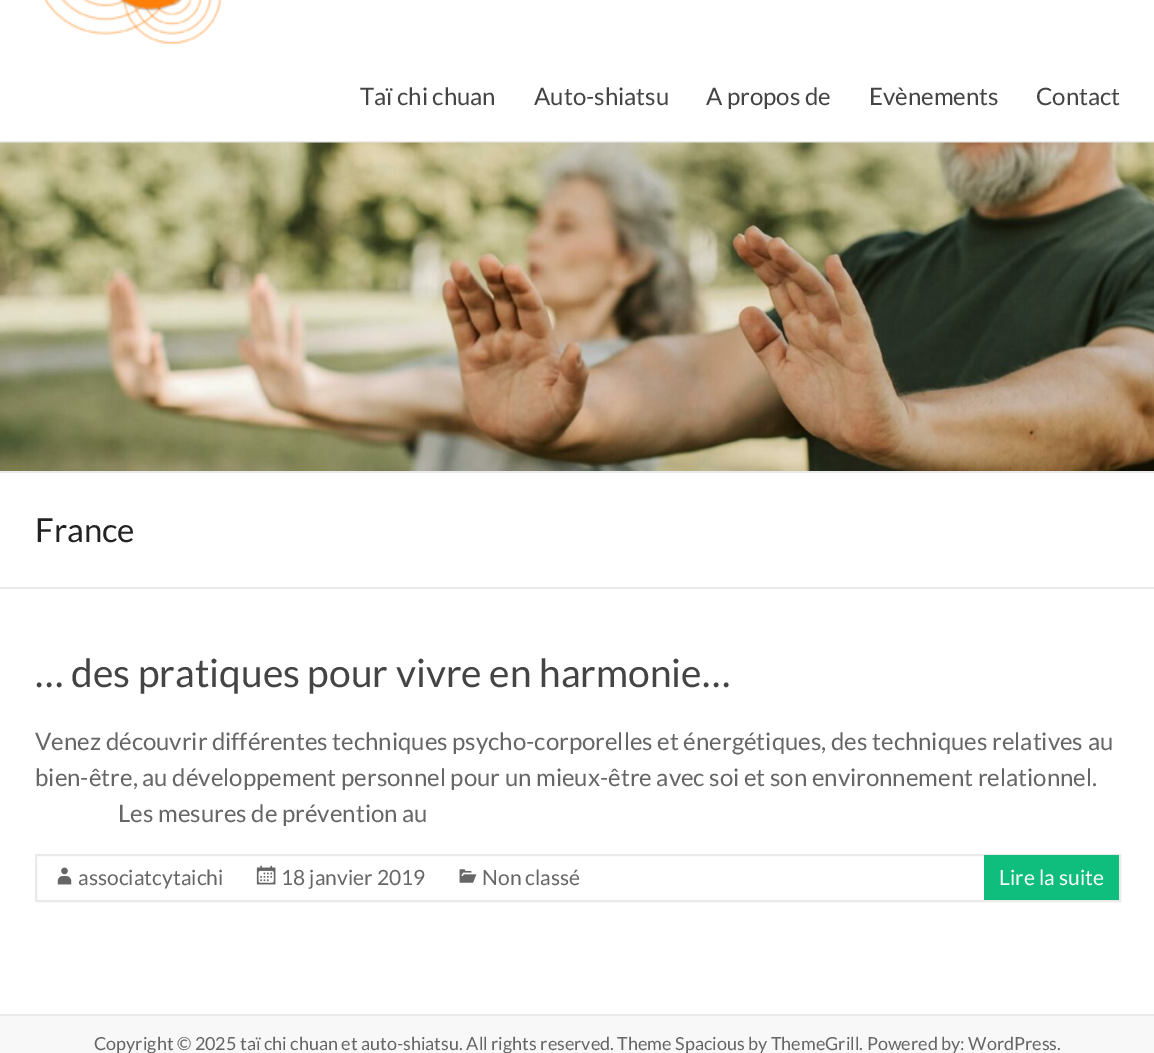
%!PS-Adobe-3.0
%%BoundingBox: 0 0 1154 1053
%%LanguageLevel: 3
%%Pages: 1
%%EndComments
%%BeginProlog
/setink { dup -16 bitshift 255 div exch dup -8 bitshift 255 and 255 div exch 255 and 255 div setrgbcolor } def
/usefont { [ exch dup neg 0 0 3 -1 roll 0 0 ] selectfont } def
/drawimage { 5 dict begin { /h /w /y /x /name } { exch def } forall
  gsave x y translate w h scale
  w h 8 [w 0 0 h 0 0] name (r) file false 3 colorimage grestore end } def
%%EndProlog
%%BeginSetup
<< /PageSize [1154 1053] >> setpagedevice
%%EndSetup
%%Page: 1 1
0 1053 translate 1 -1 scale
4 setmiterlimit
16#FFFFFF setink
0 0 1154 1053 rectfill
16#EAEAEA setink
0 141 1154 2 rectfill
(img1.raw) 44 0 178 44 drawimage
/Lato-Regular 24 usefont
16#444444 setink
[
    [(Taï chi chuan) 360 105]
    [(Auto-shiatsu) 534 105]
    [(A propos de) 706 105]
    [(Evènements) 869 105]
    [(Contact) 1036 105]
] { aload pop moveto show } forall
(img2.raw) 0 142 1154 329 drawimage
16#EAEAEA setink
0 471 1154 2 rectfill
0 587 1154 2 rectfill
/Lato-Regular 33 usefont
16#222222 setink
35 542 moveto (France) show
/Lato-Regular 39 usefont
16#444444 setink
35 687 moveto (… des pratiques pour vivre en harmonie…) show
/Lato-Regular 24 usefont
16#666666 setink
[
    [(Venez découvrir différentes techniques psycho-corporelles et énergétiques, des techniques relatives au) 35 750]
    [(bien-être, au développement personnel pour un mieux-être avec soi et son environnement relationnel.) 35 786]
    [(Les mesures de prévention au) 118 822]
] { aload pop moveto show } forall
16#EAEAEA setink
2 setlinewidth
36 855 1084 46 rectstroke
(img3.raw) 57 867 15 18 drawimage
/Lato-Regular 21 usefont
16#666666 setink
78 885 moveto (associatcytaichi) show
(img4.raw) 256 865 20 20 drawimage
281 885 moveto (18 janvier 2019) show
(img5.raw) 459 869 18 14 drawimage
482 885 moveto (Non classé) show
16#0FBE7C setink
984 855 135 45 rectfill
16#FFFFFF setink
999 885 moveto (Lire la suite) show
16#F8F8F8 setink
0 1016 1154 37 rectfill
16#EAEAEA setink
0 1014 1154 2 rectfill
/Lato-Regular 18 usefont
16#666666 setink
94 1050 moveto (Copyright © 2025 taï chi chuan et auto-shiatsu. All rights reserved. Theme Spacious by ThemeGrill. Powered by: WordPress.) show
showpage
%%EOF
